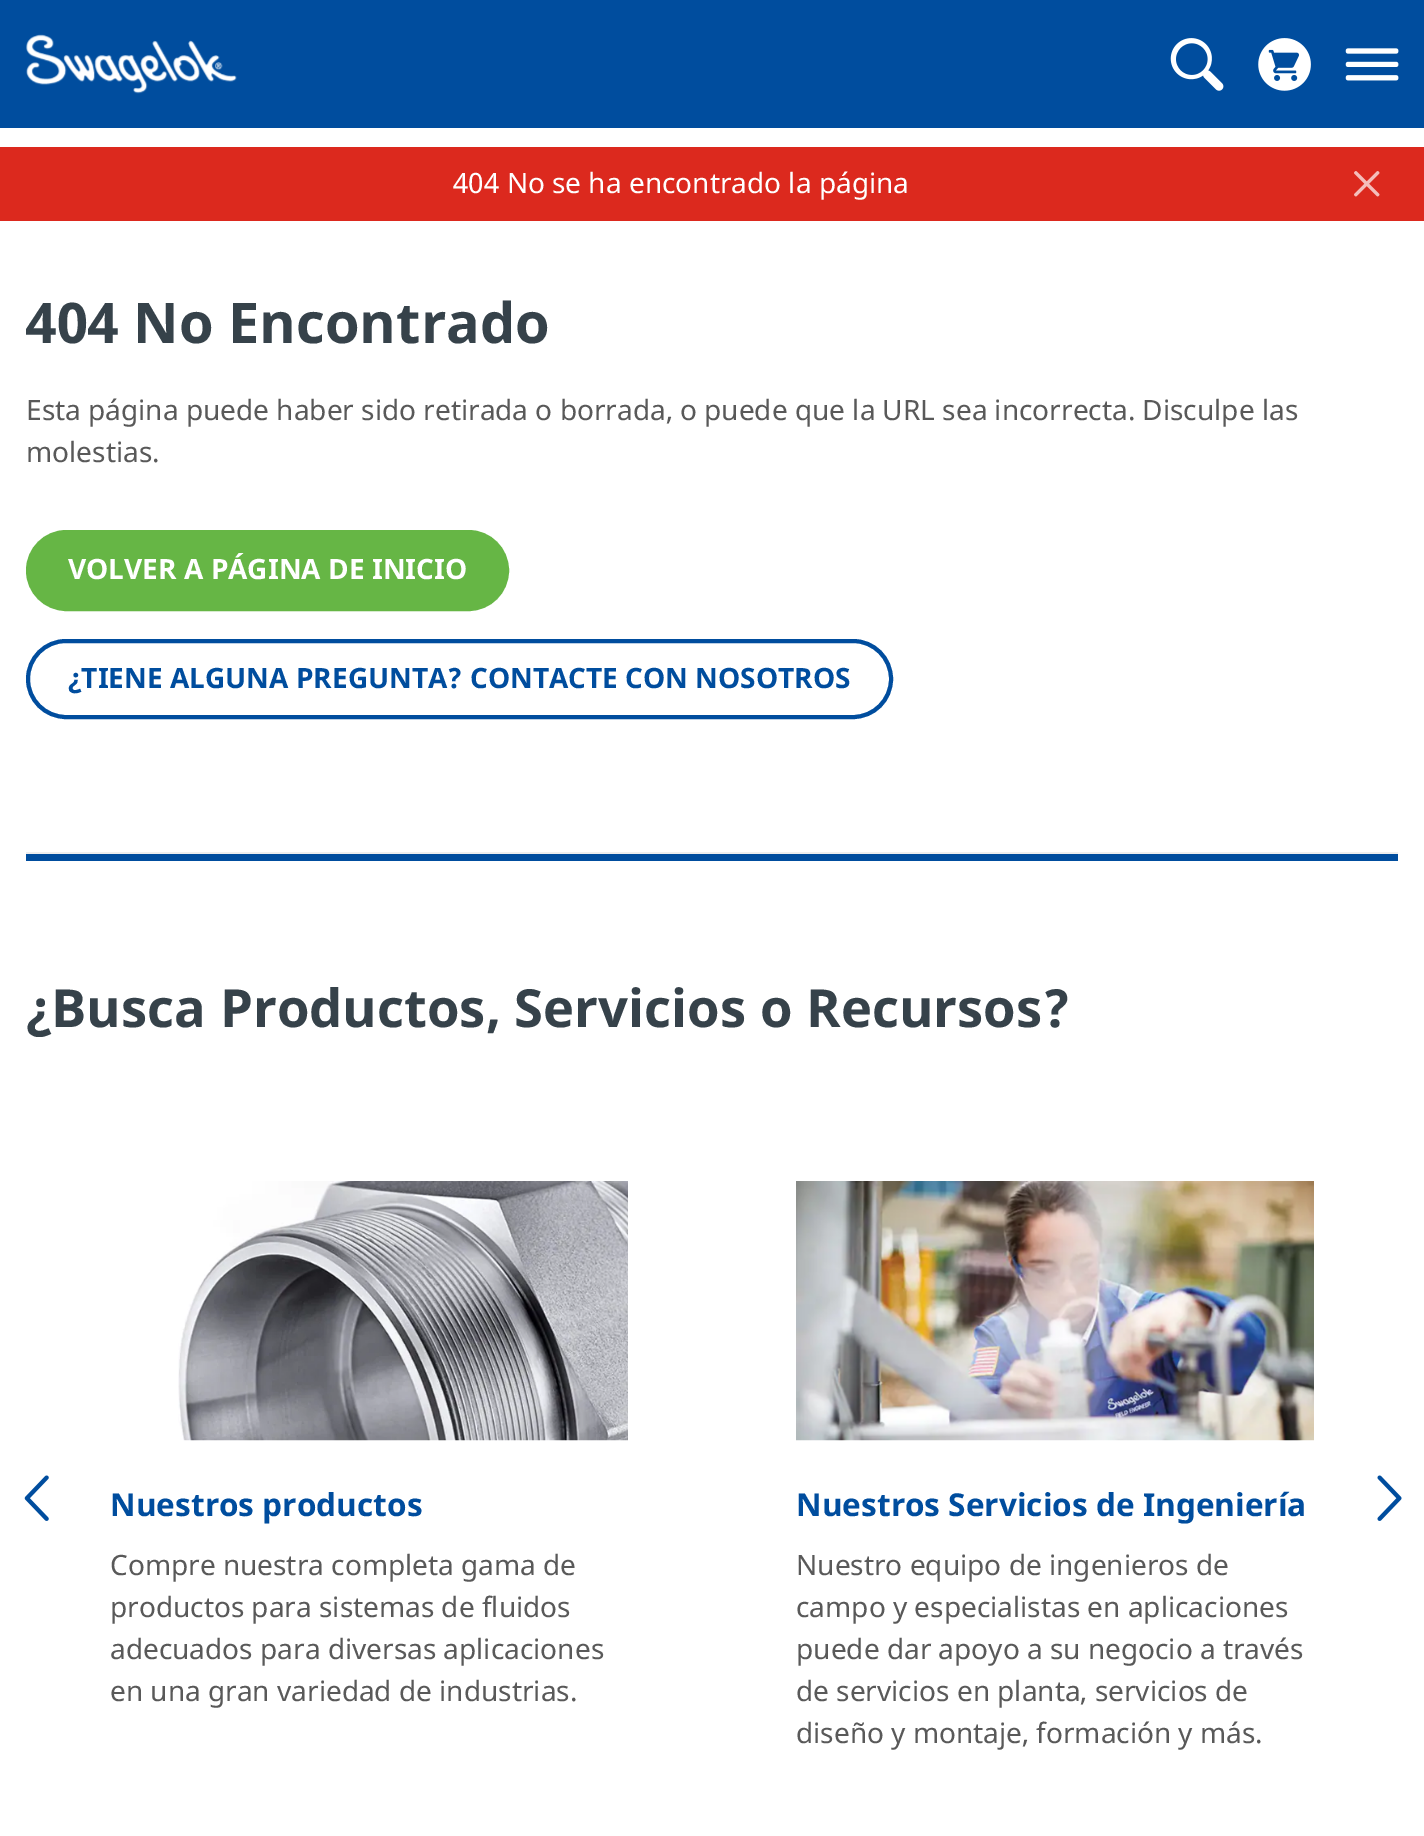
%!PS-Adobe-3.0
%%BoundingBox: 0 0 1424 1836
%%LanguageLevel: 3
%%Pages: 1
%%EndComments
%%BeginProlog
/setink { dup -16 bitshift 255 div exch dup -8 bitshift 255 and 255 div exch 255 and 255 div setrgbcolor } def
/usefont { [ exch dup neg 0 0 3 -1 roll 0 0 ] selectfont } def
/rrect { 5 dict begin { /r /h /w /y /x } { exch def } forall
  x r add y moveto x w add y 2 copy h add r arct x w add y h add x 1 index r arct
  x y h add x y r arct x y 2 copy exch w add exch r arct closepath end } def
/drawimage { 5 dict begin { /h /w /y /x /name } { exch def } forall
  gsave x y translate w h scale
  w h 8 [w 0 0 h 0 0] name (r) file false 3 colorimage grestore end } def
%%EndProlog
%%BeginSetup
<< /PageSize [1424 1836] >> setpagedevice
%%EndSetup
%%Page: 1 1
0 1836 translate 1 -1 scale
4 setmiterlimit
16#FFFFFF setink
0 0 1424 1836 rectfill
16#004D9E setink
0 0 1424 128 rectfill
(img1.raw) 26 34 211 60 drawimage
(img2.raw) 1170 38 54 53 drawimage
(img3.raw) 1258 38 53 53 drawimage
(img4.raw) 1345 48 54 33 drawimage
16#DC291E setink
0 147 1424 74 rectfill
/NotoSans-Regular 28 usefont
16#FFFFFF setink
453 193 moveto (404 No se ha encontrado la página) show
(img5.raw) 1354 171 26 26 drawimage
/NotoSans-Bold 56 usefont
16#36424A setink
26 343 moveto (404 No Encontrado) show
/NotoSans-Regular 28 usefont
16#595959 setink
26 420 moveto (Esta página puede haber sido retirada o borrada, o puede que la URL sea incorrecta. Disculpe las) show
26 462 moveto (molestias.) show
16#66B645 setink
28 532 479 77 38.5 rrect gsave fill grestore
4 setlinewidth
stroke
/NotoSans-Bold 28 usefont
16#FFFFFF setink
68 579 moveto (VOLVER A PÁGINA DE INICIO) show
16#004D9E setink
28 641 863 76 38 rrect stroke
68 688 moveto (¿TIENE ALGUNA PREGUNTA? CONTACTE CON NOSOTROS) show
16#EEEEEE setink
26 852 1372 2 rectfill
16#004D9E setink
26 854 1372 7 rectfill
/NotoSans-Bold 52.6 usefont
16#36424A setink
26 1027 moveto (¿Busca Productos, Servicios o Recursos?) show
(img6.raw) 24 1475 25 46 drawimage
(img7.raw) 1377 1475 25 46 drawimage
(img8.raw) 178 1181 450 260 drawimage
/NotoSans-Bold 31.6 usefont
16#004D9E setink
110 1516 moveto (Nuestros productos) show
/NotoSans-Regular 28 usefont
16#595959 setink
[
    [(Compre nuestra completa gama de) 110 1575]
    [(productos para sistemas de fluidos) 110 1617]
    [(adecuados para diversas aplicaciones) 110 1659]
    [(en una gran variedad de industrias.) 110 1701]
] { aload pop moveto show } forall
(img9.raw) 796 1181 518 260 drawimage
/NotoSans-Bold 31.6 usefont
16#004D9E setink
796 1516 moveto (Nuestros Servicios de Ingeniería) show
/NotoSans-Regular 28 usefont
16#595959 setink
[
    [(Nuestro equipo de ingenieros de) 796 1575]
    [(campo y especialistas en aplicaciones) 796 1617]
    [(puede dar apoyo a su negocio a través) 796 1659]
    [(de servicios en planta, servicios de) 796 1701]
    [(diseño y montaje, formación y más.) 796 1743]
] { aload pop moveto show } forall
showpage
%%EOF
